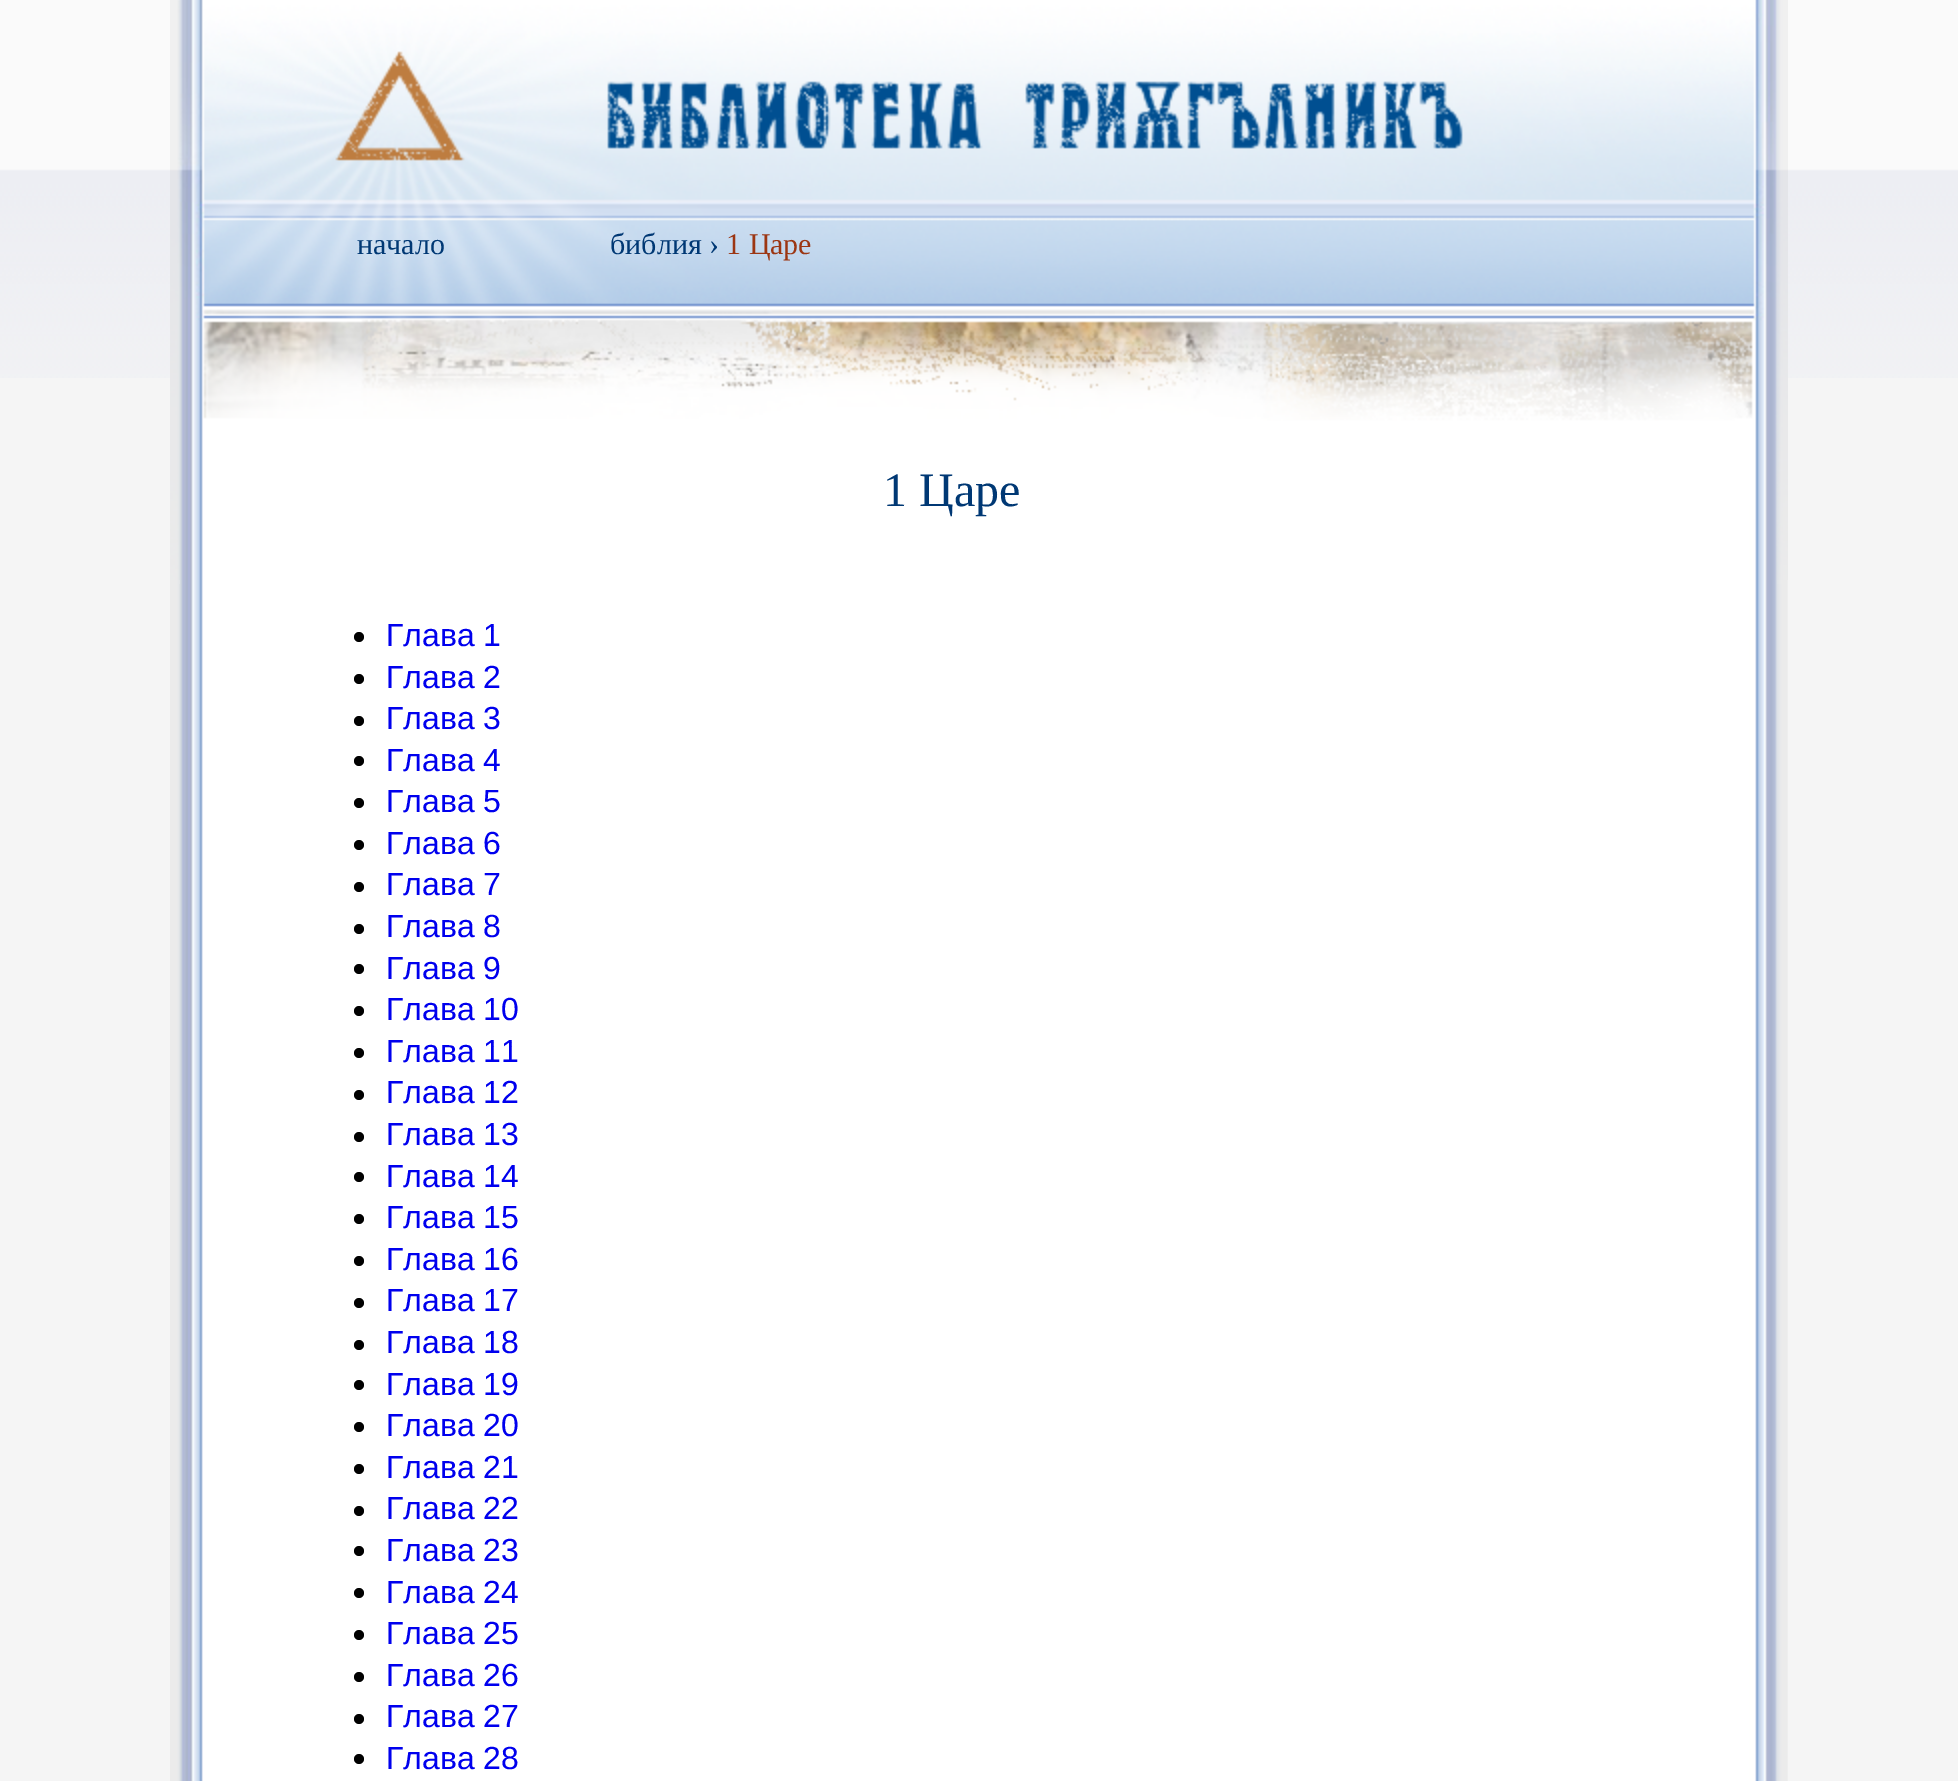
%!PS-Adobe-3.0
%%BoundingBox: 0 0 1958 1781
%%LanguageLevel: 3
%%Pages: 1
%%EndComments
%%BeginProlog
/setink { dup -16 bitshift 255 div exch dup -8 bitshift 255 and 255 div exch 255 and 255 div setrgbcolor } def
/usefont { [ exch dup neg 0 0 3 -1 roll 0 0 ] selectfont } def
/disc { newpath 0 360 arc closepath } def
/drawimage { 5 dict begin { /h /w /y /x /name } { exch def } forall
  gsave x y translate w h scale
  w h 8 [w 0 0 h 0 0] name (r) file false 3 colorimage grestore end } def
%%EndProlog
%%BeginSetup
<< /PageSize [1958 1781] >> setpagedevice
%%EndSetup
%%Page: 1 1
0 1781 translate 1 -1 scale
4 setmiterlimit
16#F5F5F5 setink
0 0 1958 1781 rectfill
(img1.raw) 0 0 1958 378 drawimage
(img4.raw) 170 580 1618 4 drawimage
(img2.raw) 180 580 1597 4 drawimage
(img3.raw) 170 0 1618 580 drawimage
/LiberationSerif-Regular 30 usefont
16#003874 setink
357 254 moveto (начало) show
610 254 moveto (библия ›) show
16#9C3613 setink
726 254 moveto (1 Царе) show
/LiberationSerif-Regular 48 usefont
16#003874 setink
883 506 moveto (1 Царе) show
(img5.raw) 170 584 1618 1197 drawimage
16#000000 setink
359 637 5 disc fill
/LiberationSans-Regular 32 usefont
16#0000EE setink
386 646 moveto (Глава 1) show
16#000000 setink
359 679 5 disc fill
16#0000EE setink
386 688 moveto (Глава 2) show
16#000000 setink
359 721 5 disc fill
16#0000EE setink
386 729 moveto (Глава 3) show
16#000000 setink
359 761 5 disc fill
16#0000EE setink
386 771 moveto (Глава 4) show
16#000000 setink
359 803 5 disc fill
16#0000EE setink
386 812 moveto (Глава 5) show
16#000000 setink
359 845 5 disc fill
16#0000EE setink
386 854 moveto (Глава 6) show
16#000000 setink
359 887 5 disc fill
16#0000EE setink
386 895 moveto (Глава 7) show
16#000000 setink
359 929 5 disc fill
16#0000EE setink
386 937 moveto (Глава 8) show
16#000000 setink
359 969 5 disc fill
16#0000EE setink
386 979 moveto (Глава 9) show
16#000000 setink
359 1011 5 disc fill
16#0000EE setink
386 1020 moveto (Глава 10) show
16#000000 setink
359 1053 5 disc fill
16#0000EE setink
386 1062 moveto (Глава 11) show
16#000000 setink
359 1095 5 disc fill
16#0000EE setink
386 1103 moveto (Глава 12) show
16#000000 setink
359 1137 5 disc fill
16#0000EE setink
386 1145 moveto (Глава 13) show
16#000000 setink
359 1177 5 disc fill
16#0000EE setink
386 1187 moveto (Глава 14) show
16#000000 setink
359 1219 5 disc fill
16#0000EE setink
386 1228 moveto (Глава 15) show
16#000000 setink
359 1261 5 disc fill
16#0000EE setink
386 1270 moveto (Глава 16) show
16#000000 setink
359 1303 5 disc fill
16#0000EE setink
386 1311 moveto (Глава 17) show
16#000000 setink
359 1345 5 disc fill
16#0000EE setink
386 1353 moveto (Глава 18) show
16#000000 setink
359 1385 5 disc fill
16#0000EE setink
386 1395 moveto (Глава 19) show
16#000000 setink
359 1427 5 disc fill
16#0000EE setink
386 1436 moveto (Глава 20) show
16#000000 setink
359 1469 5 disc fill
16#0000EE setink
386 1478 moveto (Глава 21) show
16#000000 setink
359 1511 5 disc fill
16#0000EE setink
386 1519 moveto (Глава 22) show
16#000000 setink
359 1551 5 disc fill
16#0000EE setink
386 1561 moveto (Глава 23) show
16#000000 setink
359 1593 5 disc fill
16#0000EE setink
386 1603 moveto (Глава 24) show
16#000000 setink
359 1635 5 disc fill
16#0000EE setink
386 1644 moveto (Глава 25) show
16#000000 setink
359 1677 5 disc fill
16#0000EE setink
386 1686 moveto (Глава 26) show
16#000000 setink
359 1719 5 disc fill
16#0000EE setink
386 1727 moveto (Глава 27) show
16#000000 setink
359 1759 5 disc fill
16#0000EE setink
386 1769 moveto (Глава 28) show
showpage
%%EOF
